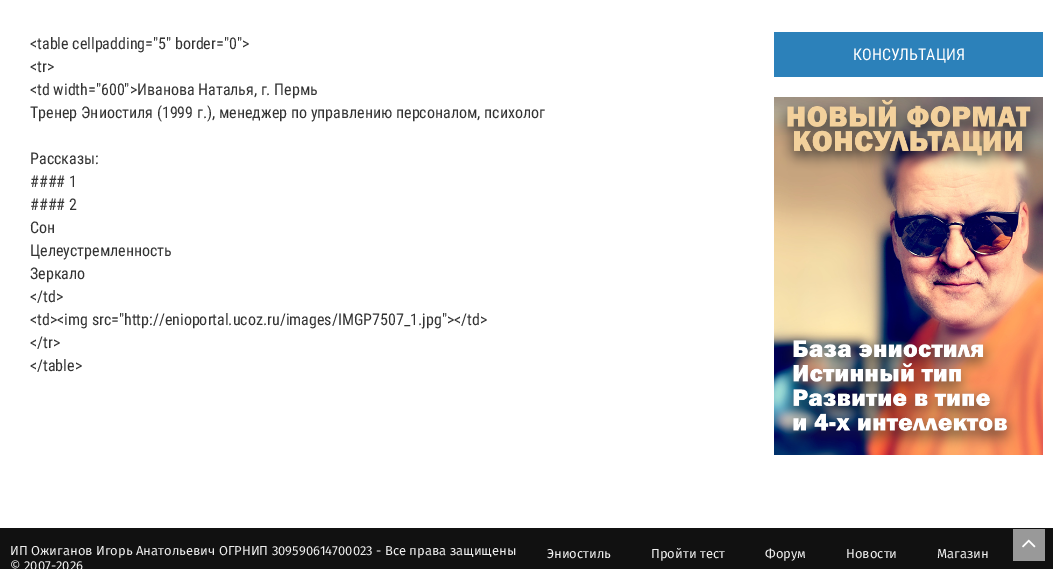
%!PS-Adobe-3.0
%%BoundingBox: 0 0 1053 569
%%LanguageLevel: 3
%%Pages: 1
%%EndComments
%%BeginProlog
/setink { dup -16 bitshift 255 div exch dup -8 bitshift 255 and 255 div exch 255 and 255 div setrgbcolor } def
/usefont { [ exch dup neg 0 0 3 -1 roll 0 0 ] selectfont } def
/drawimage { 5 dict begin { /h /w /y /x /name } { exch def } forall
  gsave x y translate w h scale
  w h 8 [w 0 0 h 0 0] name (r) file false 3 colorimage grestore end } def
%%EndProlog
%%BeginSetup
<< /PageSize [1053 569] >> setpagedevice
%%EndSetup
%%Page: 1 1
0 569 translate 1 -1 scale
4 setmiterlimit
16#FFFFFF setink
0 0 1053 569 rectfill
/RobotoCondensed-Regular 16 usefont
16#333333 setink
[
    [(<table cellpadding="5" border="0">) 30 49]
    [(<tr>) 30 72]
    [(<td width="600">Иванова Наталья, г. Пермь) 30 95]
    [(Тренер Эниостиля \(1999 г.\), менеджер по управлению персоналом, психолог) 30 118]
    [(Рассказы:) 30 164]
    [(#### 1) 30 187]
    [(#### 2) 30 210]
    [(Сон) 30 233]
    [(Целеустремленность) 30 256]
    [(Зеркало) 30 279]
    [(</td>) 30 302]
    [(<td><img src="http://enioportal.ucoz.ru/images/IMGP7507_1.jpg"></td>) 30 325]
    [(</tr>) 30 348]
    [(</table>) 30 371]
] { aload pop moveto show } forall
16#2C81BA setink
774 32 269 45 rectfill
16#FFFFFF setink
853 60 moveto (КОНСУЛЬТАЦИЯ) show
(img1.raw) 774 97 269 358 drawimage
16#111111 setink
0 528 1053 41 rectfill
/FiraSans-Regular 13 usefont
16#EEEEEE setink
[
    [(ИП Ожиганов Игорь Анатольевич ОГРНИП 309590614700023 - Все права защищены) 10 555]
    [(© 2007-2026) 10 570]
    [(Эниостиль) 547 558]
    [(Пройти тест) 651 558]
    [(Форум) 765 558]
    [(Новости) 846 558]
    [(Магазин) 937 558]
] { aload pop moveto show } forall
16#999999 setink
1013 529 32 32 rectfill
(img2.raw) 1022 539 14 9 drawimage
showpage
%%EOF
